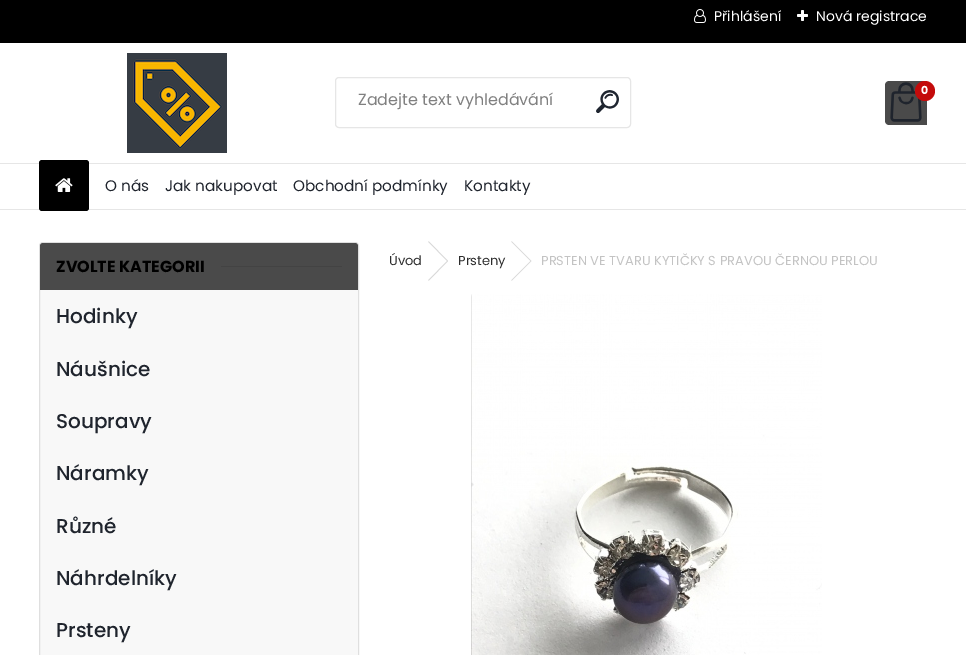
%!PS-Adobe-3.0
%%BoundingBox: 0 0 966 655
%%LanguageLevel: 3
%%Pages: 1
%%EndComments
%%BeginProlog
/setink { dup -16 bitshift 255 div exch dup -8 bitshift 255 and 255 div exch 255 and 255 div setrgbcolor } def
/usefont { [ exch dup neg 0 0 3 -1 roll 0 0 ] selectfont } def
/setalpha { dup .setfillconstantalpha .setstrokeconstantalpha } def
/disc { newpath 0 360 arc closepath } def
/rrect { 5 dict begin { /r /h /w /y /x } { exch def } forall
  x r add y moveto x w add y 2 copy h add r arct x w add y h add x 1 index r arct
  x y h add x y r arct x y 2 copy exch w add exch r arct closepath end } def
/drawimage { 5 dict begin { /h /w /y /x /name } { exch def } forall
  gsave x y translate w h scale
  w h 8 [w 0 0 h 0 0] name (r) file false 3 colorimage grestore end } def
%%EndProlog
%%BeginSetup
<< /PageSize [966 655] /PageUsesTransparency true >> setpagedevice
%%EndSetup
%%Page: 1 1
0 .pushpdf14devicefilter
0 655 translate 1 -1 scale
4 setmiterlimit
16#FFFFFF setink
0 0 966 655 rectfill
16#000000 setink
0 0 966 43 rectfill
(img1.raw) 694 9 12 14 drawimage
/Poppins-Regular 14 usefont
16#FFFFFF setink
714 21 moveto (Přihlášení) show
(img2.raw) 797 10 11 11 drawimage
816 21 moveto (Nová registrace) show
16#E6E6E6 setink
0 209 966 1 rectfill
(img3.raw) 127 53 100 100 drawimage
16#4A4A4A setink
889 81 moveto 927 81 lineto 927 125 lineto 889 125 lineto 887 125 885 123 885 121 curveto 885 85 lineto 885 83 887 81 889 81 curveto closepath fill
(img4.raw) 890 82 32 40 drawimage
16#C40B0B setink
925 91 10 disc fill
/Poppins-Bold 11 usefont
16#FFFFFF setink
921 94 moveto (0) show
16#E6E6E6 setink
335.5 77.5 295 50 3.5 rrect stroke
/Poppins-Regular 16 usefont
16#808080 setink
358 105 moveto (Zadejte text vyhledávání) show
(img5.raw) 596 90 23 23 drawimage
16#E6E6E6 setink
0 163 966 1 rectfill
16#000000 setink
39 160 50 51 3 rrect fill
(img6.raw) 55 178 18 14 drawimage
/Poppins-Regular 15.25 usefont
16#1F242D setink
[
    [(O nás) 105 191]
    [(Jak nakupovat) 165 191]
    [(Obchodní podmínky) 293 191]
    [(Kontakty) 464 191]
] { aload pop moveto show } forall
16#F8F8F8 setink
39 242 320 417 4 rrect fill
0.1 setalpha
16#000000 setink
39.5 242.5 319 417 3.5 rrect stroke
1 setalpha
16#4A4A4A setink
43 243 moveto 355 243 lineto 356.5 243 358 244.5 358 246 curveto 358 290 lineto 40 290 lineto 40 246 lineto 40 244.5 41.5 243 43 243 curveto closepath fill
/Poppins-Bold 16 usefont
16#000000 setink
56 272 moveto (ZVOLTE KATEGORII) show
16#434343 setink
221 266 121 1 rectfill
/Poppins-Medium 20 usefont
16#1F242D setink
[
    [(Hodinky) 56 323]
    [(Náušnice) 56 376]
    [(Soupravy) 56 428]
    [(Náramky) 56 480]
    [(Různé) 56 533]
    [(Náhrdelníky) 56 585]
    [(Prsteny) 56 637]
] { aload pop moveto show } forall
/Poppins-Regular 13 usefont
16#2D2D2D setink
389 265 moveto (Úvod) show
16#D7D7D7 setink
428 241.5 moveto 429 241.5 lineto 448 261 lineto 447 261 lineto closepath 447 261 moveto 448 261 lineto 429 280.5 lineto 428 280.5 lineto closepath fill
16#2D2D2D setink
458 265 moveto (Prsteny) show
16#D7D7D7 setink
511 241.5 moveto 512 241.5 lineto 531.5 261 lineto 530.5 261 lineto closepath 530.5 261 moveto 531.5 261 lineto 512 280.5 lineto 511 280.5 lineto closepath fill
16#C3C3C3 setink
541 265 moveto (PRSTEN VE TVARU KYTIČKY S PRAVOU ČERNOU PERLOU) show
(img7.raw) 471 294 351 361 drawimage
.poppdf14devicefilter showpage
%%EOF
